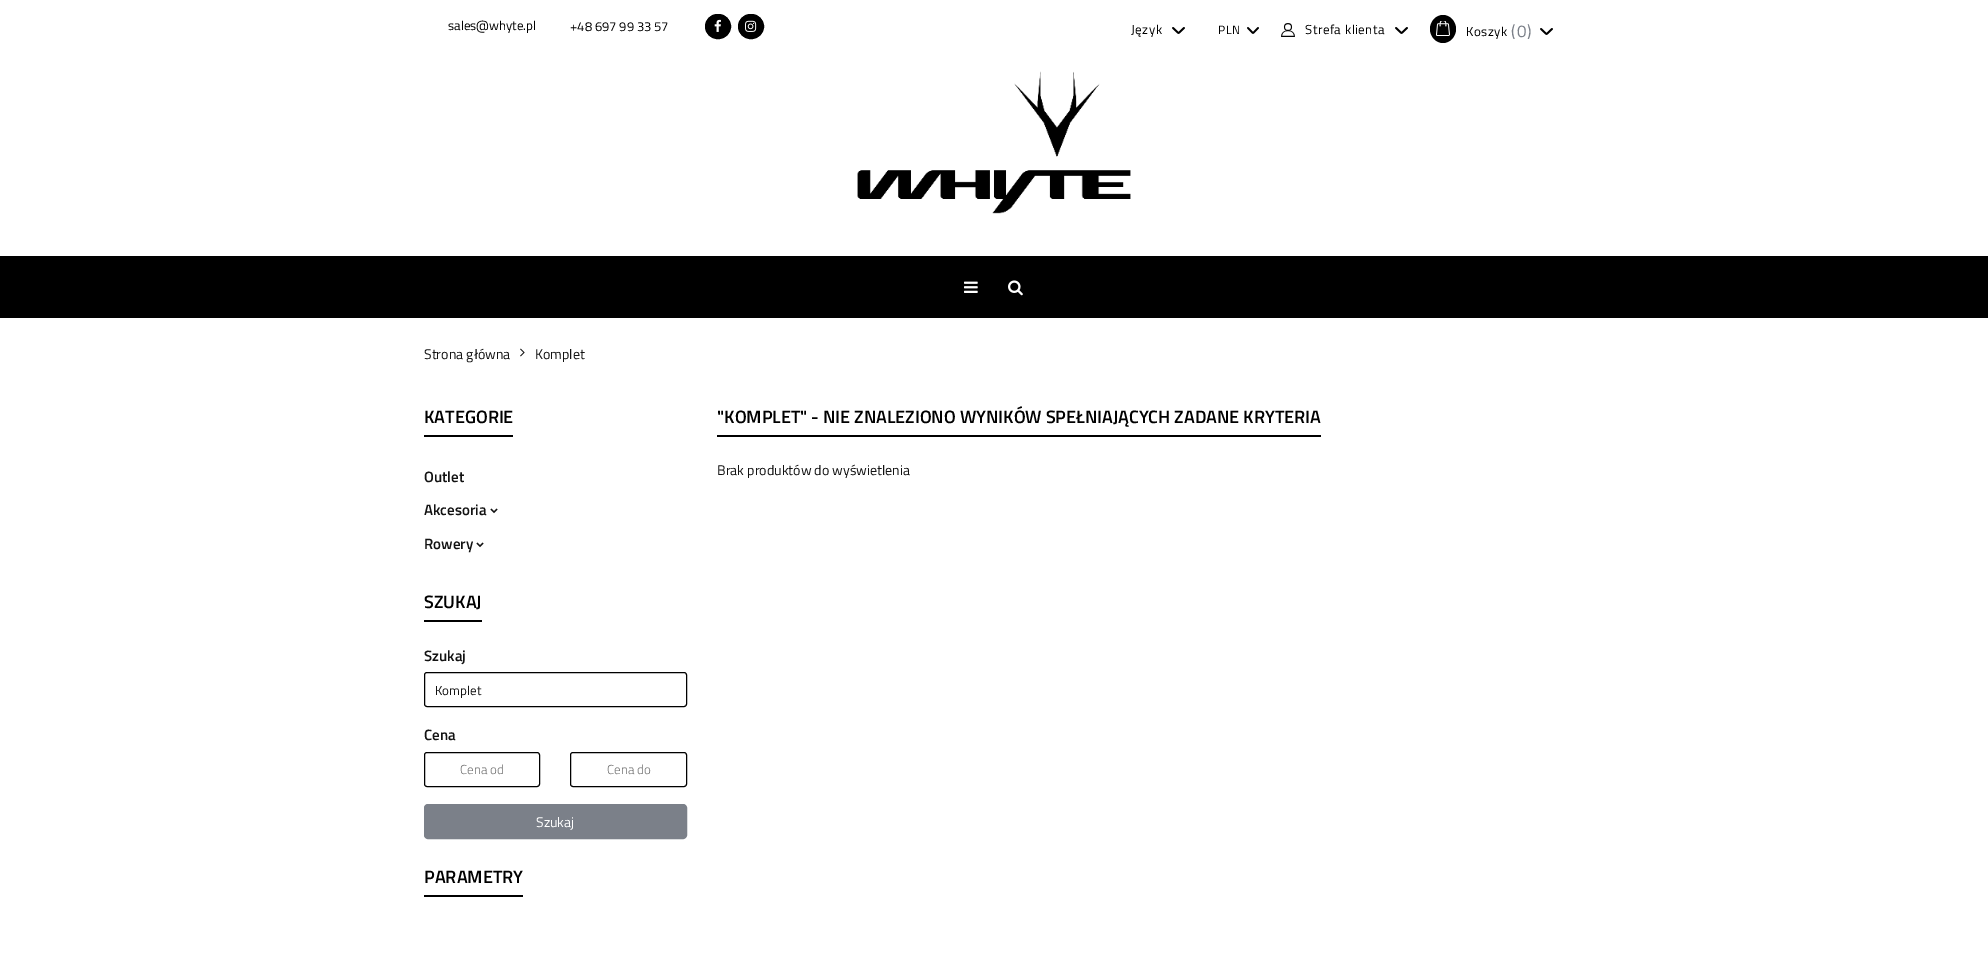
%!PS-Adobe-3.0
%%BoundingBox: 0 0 1988 962
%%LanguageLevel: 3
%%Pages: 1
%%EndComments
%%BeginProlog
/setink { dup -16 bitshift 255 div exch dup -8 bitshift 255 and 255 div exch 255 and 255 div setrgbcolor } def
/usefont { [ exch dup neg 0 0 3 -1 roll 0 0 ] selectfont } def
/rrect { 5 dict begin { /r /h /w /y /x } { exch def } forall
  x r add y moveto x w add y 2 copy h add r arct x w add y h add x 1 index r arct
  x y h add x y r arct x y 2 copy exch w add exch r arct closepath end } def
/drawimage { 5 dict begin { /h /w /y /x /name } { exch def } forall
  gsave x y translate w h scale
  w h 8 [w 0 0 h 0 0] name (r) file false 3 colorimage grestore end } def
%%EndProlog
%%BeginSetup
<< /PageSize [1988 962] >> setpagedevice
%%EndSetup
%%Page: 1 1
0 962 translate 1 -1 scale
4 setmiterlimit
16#FFFFFF setink
0 0 1988 962 rectfill
/TitilliumWeb-Regular 13 usefont
16#000000 setink
448 30 moveto (sales@whyte.pl) show
570 31 moveto (+48 697 99 33 57) show
705.5 14.5 25 24 12 rrect gsave fill grestore
stroke
(img1.raw) 714 19 7 13 drawimage
738.5 14.5 25 24 12 rrect gsave fill grestore
stroke
(img2.raw) 745 20 12 12 drawimage
1131 34 moveto 0.5 0 (Język) ashow
(img3.raw) 1172 27 13 7 drawimage
/TitilliumWeb-Regular 12 usefont
1218 34 moveto 0.5 0 (PLN) ashow
(img4.raw) 1247 27 12 7 drawimage
(img5.raw) 1281 23 14 14 drawimage
/TitilliumWeb-Regular 13 usefont
1305 34 moveto 0.5 0 (Strefa klienta) ashow
(img3.raw) 1395 27 13 7 drawimage
1443 15 moveto 1450 15 1456 21.5 1456 29 curveto 1456 36.5 1450 43 1443 43 curveto 1436 43 1430 36.5 1430 29 curveto 1430 21.5 1436 15 1443 15 curveto closepath fill
(img6.raw) 1436 21 14 15 drawimage
1466 36 moveto 0.5 0 (Koszyk) ashow
/TitilliumWeb-Regular 17 usefont
16#7B8089 setink
[
    [(\() 1511 37]
    [(0) 1517 37]
    [(\)) 1527 37]
] { aload pop moveto show } forall
(img3.raw) 1540 28 13 7 drawimage
(img7.raw) 857 71 274 143 drawimage
16#000000 setink
0 256 1988 62 rectfill
(img8.raw) 964 281 14 12 drawimage
(img9.raw) 1008 280 15 16 drawimage
/TitilliumWeb-Regular 14 usefont
16#131313 setink
424 359 moveto (Strona główna) show
(img10.raw) 520 348 5 9 drawimage
535 359 moveto (Komplet) show
/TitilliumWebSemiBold-SemiBold 18 usefont
16#000000 setink
424 423 moveto (KATEGORIE) show
424 435 89 2 rectfill
/TitilliumWebSemiBold-SemiBold 15 usefont
16#131313 setink
424 482 moveto (Outlet) show
424 515 moveto (Akcesoria) show
(img11.raw) 490 508 8 6 drawimage
424 549 moveto (Rowery) show
(img11.raw) 476 542 8 6 drawimage
/TitilliumWebSemiBold-SemiBold 18 usefont
16#000000 setink
424 608 moveto (SZUKAJ) show
424 620 58 2 rectfill
/TitilliumWebSemiBold-SemiBold 15 usefont
16#131313 setink
424 661 moveto (Szukaj) show
16#000000 setink
424.5 672.5 262 34 2.5 rrect stroke
/TitilliumWeb-Regular 13 usefont
16#131313 setink
435 695 moveto (Komplet) show
/TitilliumWebSemiBold-SemiBold 15 usefont
424 740 moveto (Cena) show
16#000000 setink
424.5 752.5 115 34 2.5 rrect stroke
/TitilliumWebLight-Light 13 usefont
16#717171 setink
460 774 moveto (Cena od) show
16#000000 setink
570.5 752.5 116 34 2.5 rrect stroke
16#717171 setink
607 774 moveto (Cena do) show
16#7B8089 setink
425.5 805.5 260 32 2.5 rrect gsave fill grestore
3 setlinewidth
stroke
/TitilliumWeb-Regular 14 usefont
16#FFFFFF setink
536 827 moveto (Szukaj) show
/TitilliumWebSemiBold-SemiBold 18 usefont
16#000000 setink
424 883 moveto (PARAMETRY) show
424 895 99 2 rectfill
717 423 moveto ("KOMPLET" - NIE ZNALEZIONO WYNIKÓW SPEŁNIAJĄCYCH ZADANE KRYTERIA) show
717 435 604 2 rectfill
/TitilliumWeb-Regular 14 usefont
16#131313 setink
717 475 moveto (Brak produktów do wyświetlenia) show
showpage
%%EOF
